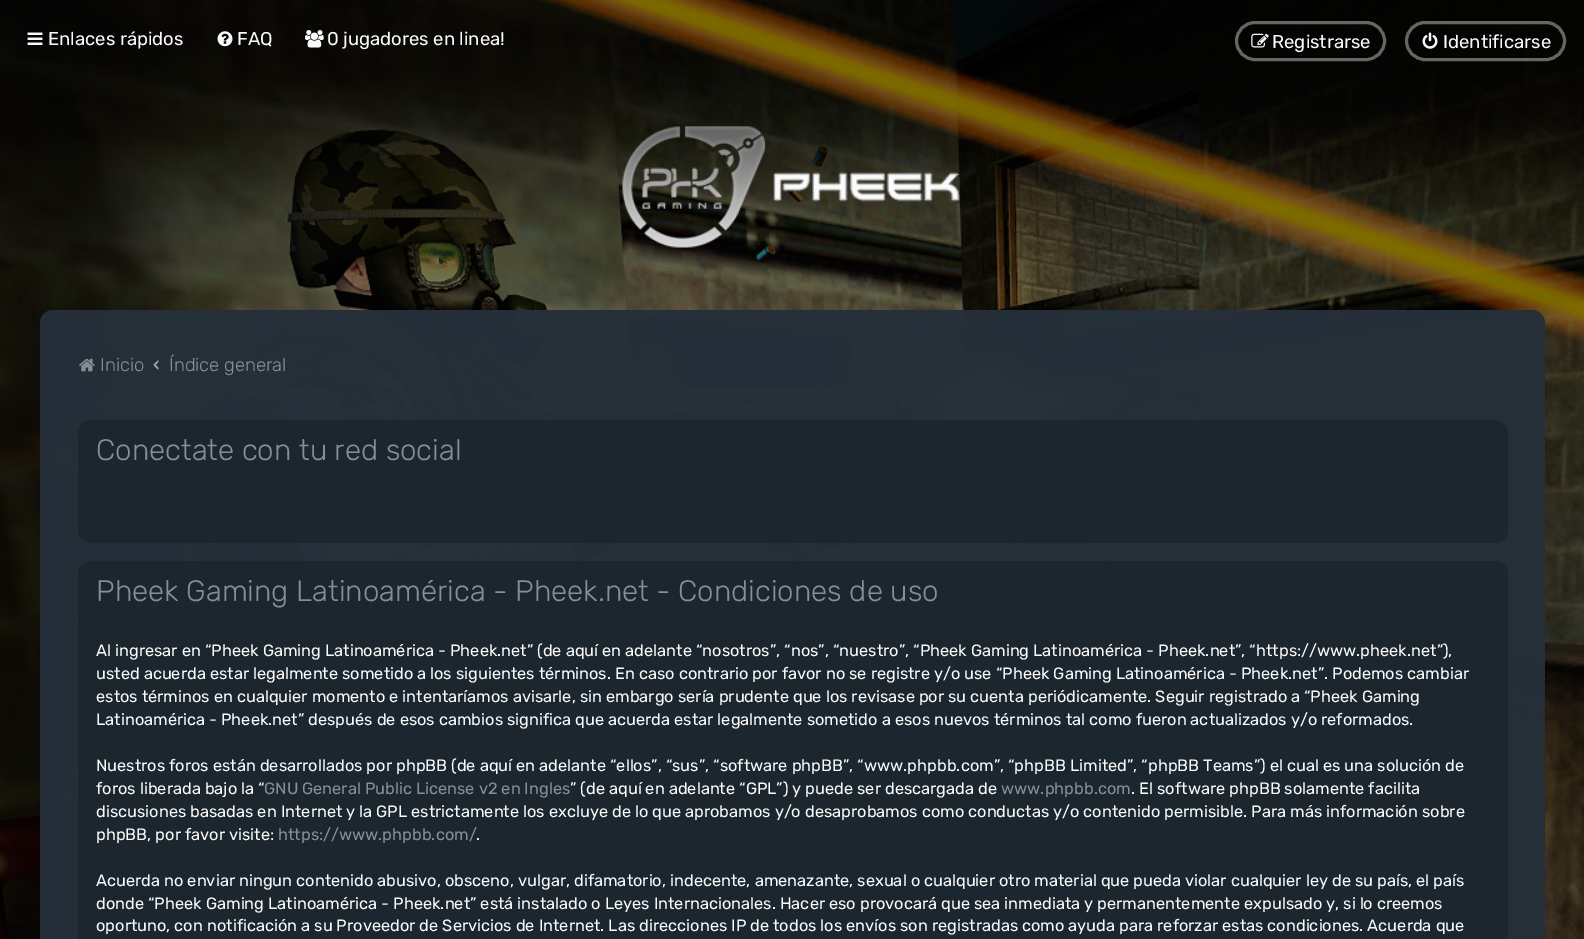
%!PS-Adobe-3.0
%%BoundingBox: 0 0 1584 939
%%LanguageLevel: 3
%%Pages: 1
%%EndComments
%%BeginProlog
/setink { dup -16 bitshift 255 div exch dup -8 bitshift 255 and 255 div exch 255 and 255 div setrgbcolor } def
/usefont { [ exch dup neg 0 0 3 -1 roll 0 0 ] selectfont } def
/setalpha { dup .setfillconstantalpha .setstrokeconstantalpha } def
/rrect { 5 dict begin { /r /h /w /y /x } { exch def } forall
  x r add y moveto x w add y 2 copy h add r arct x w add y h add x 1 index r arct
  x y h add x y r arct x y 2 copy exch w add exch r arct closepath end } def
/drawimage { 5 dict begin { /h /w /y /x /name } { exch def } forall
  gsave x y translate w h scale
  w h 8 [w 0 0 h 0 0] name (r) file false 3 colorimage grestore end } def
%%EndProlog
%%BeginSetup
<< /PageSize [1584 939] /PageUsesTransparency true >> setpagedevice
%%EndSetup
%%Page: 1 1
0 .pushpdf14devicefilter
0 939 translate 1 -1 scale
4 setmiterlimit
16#FFFFFF setink
0 0 1584 939 rectfill
(img1.raw) 0 0 1584 939 drawimage
(img2.raw) 27 32 16 13 drawimage
/Rubik-Regular 18.5 usefont
16#FAFBFB setink
48 45 moveto (Enlaces rápidos) show
(img3.raw) 217 31 16 16 drawimage
237 45 moveto (FAQ) show
(img4.raw) 305 30 19 18 drawimage
327 45 moveto (0 jugadores en linea!) show
0.39 setalpha
16#FFFFFF setink
3 setlinewidth
1236.5 22.5 148 37 18.5 rrect stroke
1 setalpha
(img5.raw) 1251 33 18 15 drawimage
16#FAFBFB setink
1272 48 moveto (Registrarse) show
0.39 setalpha
16#FFFFFF setink
1406.5 22.5 158 37 18.5 rrect stroke
1 setalpha
(img6.raw) 1422 32 16 17 drawimage
16#FAFBFB setink
1443 48 moveto (Identificarse) show
(img7.raw) 622 126 339 122 drawimage
0.98 setalpha
16#252F39 setink
40 310 1505 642 13 rrect fill
1 setalpha
(img8.raw) 79 358 16 14 drawimage
/Rubik-Light 18.5 usefont
16#839196 setink
100 371 moveto (Inicio) show
/Rubik-Medium 18.5 usefont
16#8EA1BD setink
153 371 moveto (‹) show
/Rubik-Light 18.5 usefont
16#839196 setink
169 371 moveto (Índice general) show
0.98 setalpha
16#1C262F setink
78 420 1430 123 13 rrect fill
/Rubik-Light 29.5 usefont
1 setalpha
16#839196 setink
96 460 moveto (Conectate con tu red social) show
0.98 setalpha
16#1C262F setink
78 561 1430 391 13 rrect fill
gsave
96 580 1393 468 rectclip
1 setalpha
16#839196 setink
96 601 moveto (Pheek Gaming Latinoamérica - Pheek.net - Condiciones de uso) show
grestore
/Rubik-Regular 16.38 usefont
1 setalpha
16#FAFBFB setink
[
    [(Al ingresar en “Pheek Gaming Latinoamérica - Pheek.net” \(de aquí en adelante “nosotros”, “nos”, “nuestro”, “Pheek Gaming Latinoamérica - Pheek.net”, “https://www.pheek.net”\),) 96 656]
    [(usted acuerda estar legalmente sometido a los siguientes términos. En caso contrario por favor no se registre y/o use “Pheek Gaming Latinoamérica - Pheek.net”. Podemos cambiar) 96 679]
    [(estos términos en cualquier momento e intentaríamos avisarle, sin embargo sería prudente que los revisase por su cuenta periódicamente. Seguir registrado a “Pheek Gaming) 96 702]
    [(Latinoamérica - Pheek.net” después de esos cambios significa que acuerda estar legalmente sometido a esos nuevos términos tal como fueron actualizados y/o reformados.) 96 725]
    [(Nuestros foros están desarrollados por phpBB \(de aquí en adelante “ellos”, “sus”, “software phpBB”, “www.phpbb.com”, “phpBB Limited”, “phpBB Teams”\) el cual es una solución de) 96 771]
    [(foros liberada bajo la “) 96 794]
] { aload pop moveto show } forall
16#839196 setink
264 794 moveto (GNU General Public License v2 en Ingles) show
16#FAFBFB setink
570 794 moveto (” \(de aquí en adelante “GPL”\) y puede ser descargada de) show
16#839196 setink
1001 794 moveto (www.phpbb.com) show
16#FAFBFB setink
[
    [(. El software phpBB solamente facilita) 1131 794]
    [(discusiones basadas en Internet y la GPL estrictamente los excluye de lo que aprobamos y/o desaprobamos como conductas y/o contenido permisible. Para más información sobre) 96 817]
    [(phpBB, por favor visite:) 96 840]
] { aload pop moveto show } forall
16#839196 setink
278 840 moveto (https://www.phpbb.com/) show
16#FAFBFB setink
[
    [(.) 476 840]
    [(Acuerda no enviar ningun contenido abusivo, obsceno, vulgar, difamatorio, indecente, amenazante, sexual o cualquier otro material que pueda violar cualquier ley de su país, el país) 96 886]
    [(donde “Pheek Gaming Latinoamérica - Pheek.net” está instalado o Leyes Internacionales. Hacer eso provocará que sea inmediata y permanentemente expulsado y, si lo creemos) 96 909]
    [(oportuno, con notificación a su Proveedor de Servicios de Internet. Las direcciones IP de todos los envíos son registradas como ayuda para reforzar estas condiciones. Acuerda que) 96 931]
] { aload pop moveto show } forall
.poppdf14devicefilter showpage
%%EOF
